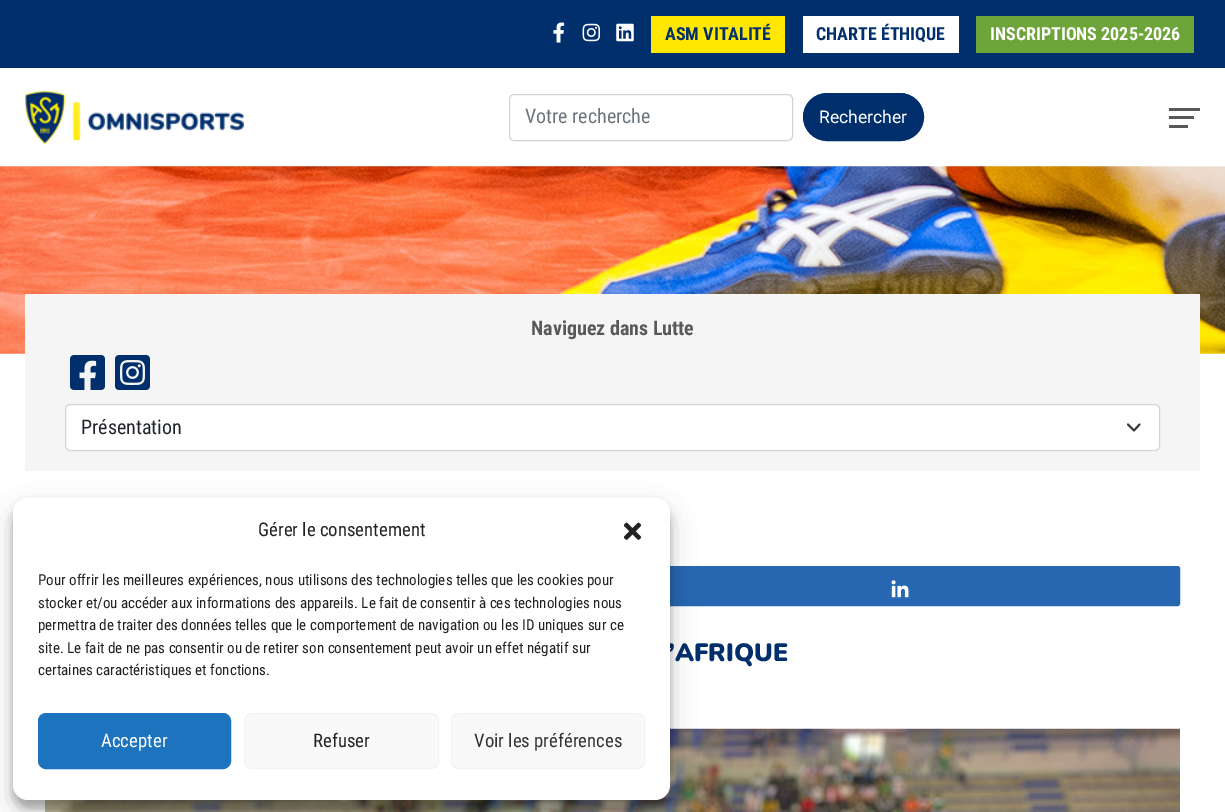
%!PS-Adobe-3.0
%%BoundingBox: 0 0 1225 812
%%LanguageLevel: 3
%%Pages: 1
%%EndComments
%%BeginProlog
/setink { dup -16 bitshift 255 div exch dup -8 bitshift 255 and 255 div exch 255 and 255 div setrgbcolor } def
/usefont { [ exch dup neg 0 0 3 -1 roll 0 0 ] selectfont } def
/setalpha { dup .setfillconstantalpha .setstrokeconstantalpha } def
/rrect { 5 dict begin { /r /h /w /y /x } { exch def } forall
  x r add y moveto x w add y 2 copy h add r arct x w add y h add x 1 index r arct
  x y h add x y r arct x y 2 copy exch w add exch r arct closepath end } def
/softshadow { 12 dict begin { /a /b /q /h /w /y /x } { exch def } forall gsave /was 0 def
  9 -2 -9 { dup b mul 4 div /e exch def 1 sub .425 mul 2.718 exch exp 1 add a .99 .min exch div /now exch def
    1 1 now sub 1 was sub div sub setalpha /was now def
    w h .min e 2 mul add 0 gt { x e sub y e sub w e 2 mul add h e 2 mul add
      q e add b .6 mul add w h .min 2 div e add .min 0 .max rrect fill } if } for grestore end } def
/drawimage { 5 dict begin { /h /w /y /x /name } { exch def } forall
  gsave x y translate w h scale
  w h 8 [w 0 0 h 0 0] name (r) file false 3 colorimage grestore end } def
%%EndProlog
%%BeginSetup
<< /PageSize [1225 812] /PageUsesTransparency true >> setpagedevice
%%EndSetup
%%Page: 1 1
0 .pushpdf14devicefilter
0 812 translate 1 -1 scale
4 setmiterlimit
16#FFFFFF setink
0 0 1225 812 rectfill
16#002F6C setink
0 0 1225 68 rectfill
(img1.raw) 553 22 12 21 drawimage
(img2.raw) 582 23 19 19 drawimage
(img3.raw) 616 23 18 19 drawimage
16#FFE701 setink
651 16 134 37 rectfill
/RobotoCondensed-Bold 18 usefont
16#002F6C setink
665 40 moveto (ASM VITALITÉ) show
16#FFFFFF setink
803 16 156 37 rectfill
16#002F6C setink
816 40 moveto (CHARTE ÉTHIQUE) show
16#6EA53A setink
976 16 218 37 rectfill
16#FFFFFF setink
990 40 moveto (INSCRIPTIONS 2025-2026) show
(img4.raw) 25 91 219 53 drawimage
16#CED4DA setink
509.5 94.5 283 46 4.5 rrect stroke
/RobotoCondensed-Regular 20 usefont
16#6C757D setink
525 123 moveto (Votre recherche) show
16#002F6C setink
803.5 93.5 120 47 23.5 rrect gsave fill grestore
stroke
/Roboto-Regular 17.5 usefont
16#FFFFFF setink
819 123 moveto (Rechercher) show
[
    [1169 108 31 3 16#58595B]
    [1169 116 25 3 16#58595B]
    [1169 125 19 3 16#58595B]
] { aload pop setink rectfill } forall
(img5.raw) 0 166 1225 188 drawimage
16#F5F5F5 setink
25 294 1175 177 rectfill
/RobotoCondensed-Bold 20 usefont
16#58595B setink
531 335 moveto (Naviguez dans Lutte) show
(img6.raw) 70 355 35 35 drawimage
(img7.raw) 115 355 35 35 drawimage
16#FFFFFF setink
65 404 1095 47 5 rrect fill
16#343A40 setink
1.9 setlinewidth
1 setlinecap
1 setlinejoin
1128 424.5 moveto 1134 430.5 lineto 1139.5 424.5 lineto stroke
16#CED4DA setink
1 setlinewidth
0 setlinecap
0 setlinejoin
65.5 404.5 1094 46 4.5 rrect stroke
/RobotoCondensed-Regular 20 usefont
16#212529 setink
81 434 moveto (Présentation) show
16#2767B1 setink
619.5 566.5 560 39 2 rrect gsave fill grestore
stroke
(img8.raw) 891 580 18 18 drawimage
/Nunito-Black 25 usefont
16#002F6C setink
668 661 moveto (’AFRIQUE) show
(img9.raw) 45 728 1135 84 drawimage
16#000000 setink
13 505 657 303 15 4 0.23 softshadow
13 510 657 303 15 12.5 0.19 softshadow
16#FFFFFF setink
13 498 657 302 15 rrect fill
/RobotoCondensed-Regular 18.75 usefont
16#222222 setink
258 536 moveto (Gérer le consentement) show
(img10.raw) 623 522 19 18 drawimage
/RobotoCondensed-Regular 15 usefont
[
    [(Pour offrir les meilleures expériences, nous utilisons des technologies telles que les cookies pour) 38 585]
    [(stocker et/ou accéder aux informations des appareils. Le fait de consentir à ces technologies nous) 38 608]
    [(permettra de traiter des données telles que le comportement de navigation ou les ID uniques sur ce) 38 630]
    [(site. Le fait de ne pas consentir ou de retirer son consentement peut avoir un effet négatif sur) 38 653]
    [(certaines caractéristiques et fonctions.) 38 675]
] { aload pop moveto show } forall
16#1E73BE setink
38.5 713.5 192 55 7.5 rrect gsave fill grestore
stroke
/RobotoCondensed-Regular 18.75 usefont
16#FFFFFF setink
101 747 moveto (Accepter) show
16#F9F9F9 setink
244.5 713.5 194 55 7.5 rrect gsave fill grestore
16#F2F2F2 setink
stroke
16#222222 setink
313 747 moveto (Refuser) show
16#F9F9F9 setink
451.5 713.5 193 55 7.5 rrect gsave fill grestore
16#F2F2F2 setink
stroke
16#333333 setink
474 747 moveto (Voir les préférences) show
.poppdf14devicefilter showpage
%%EOF
